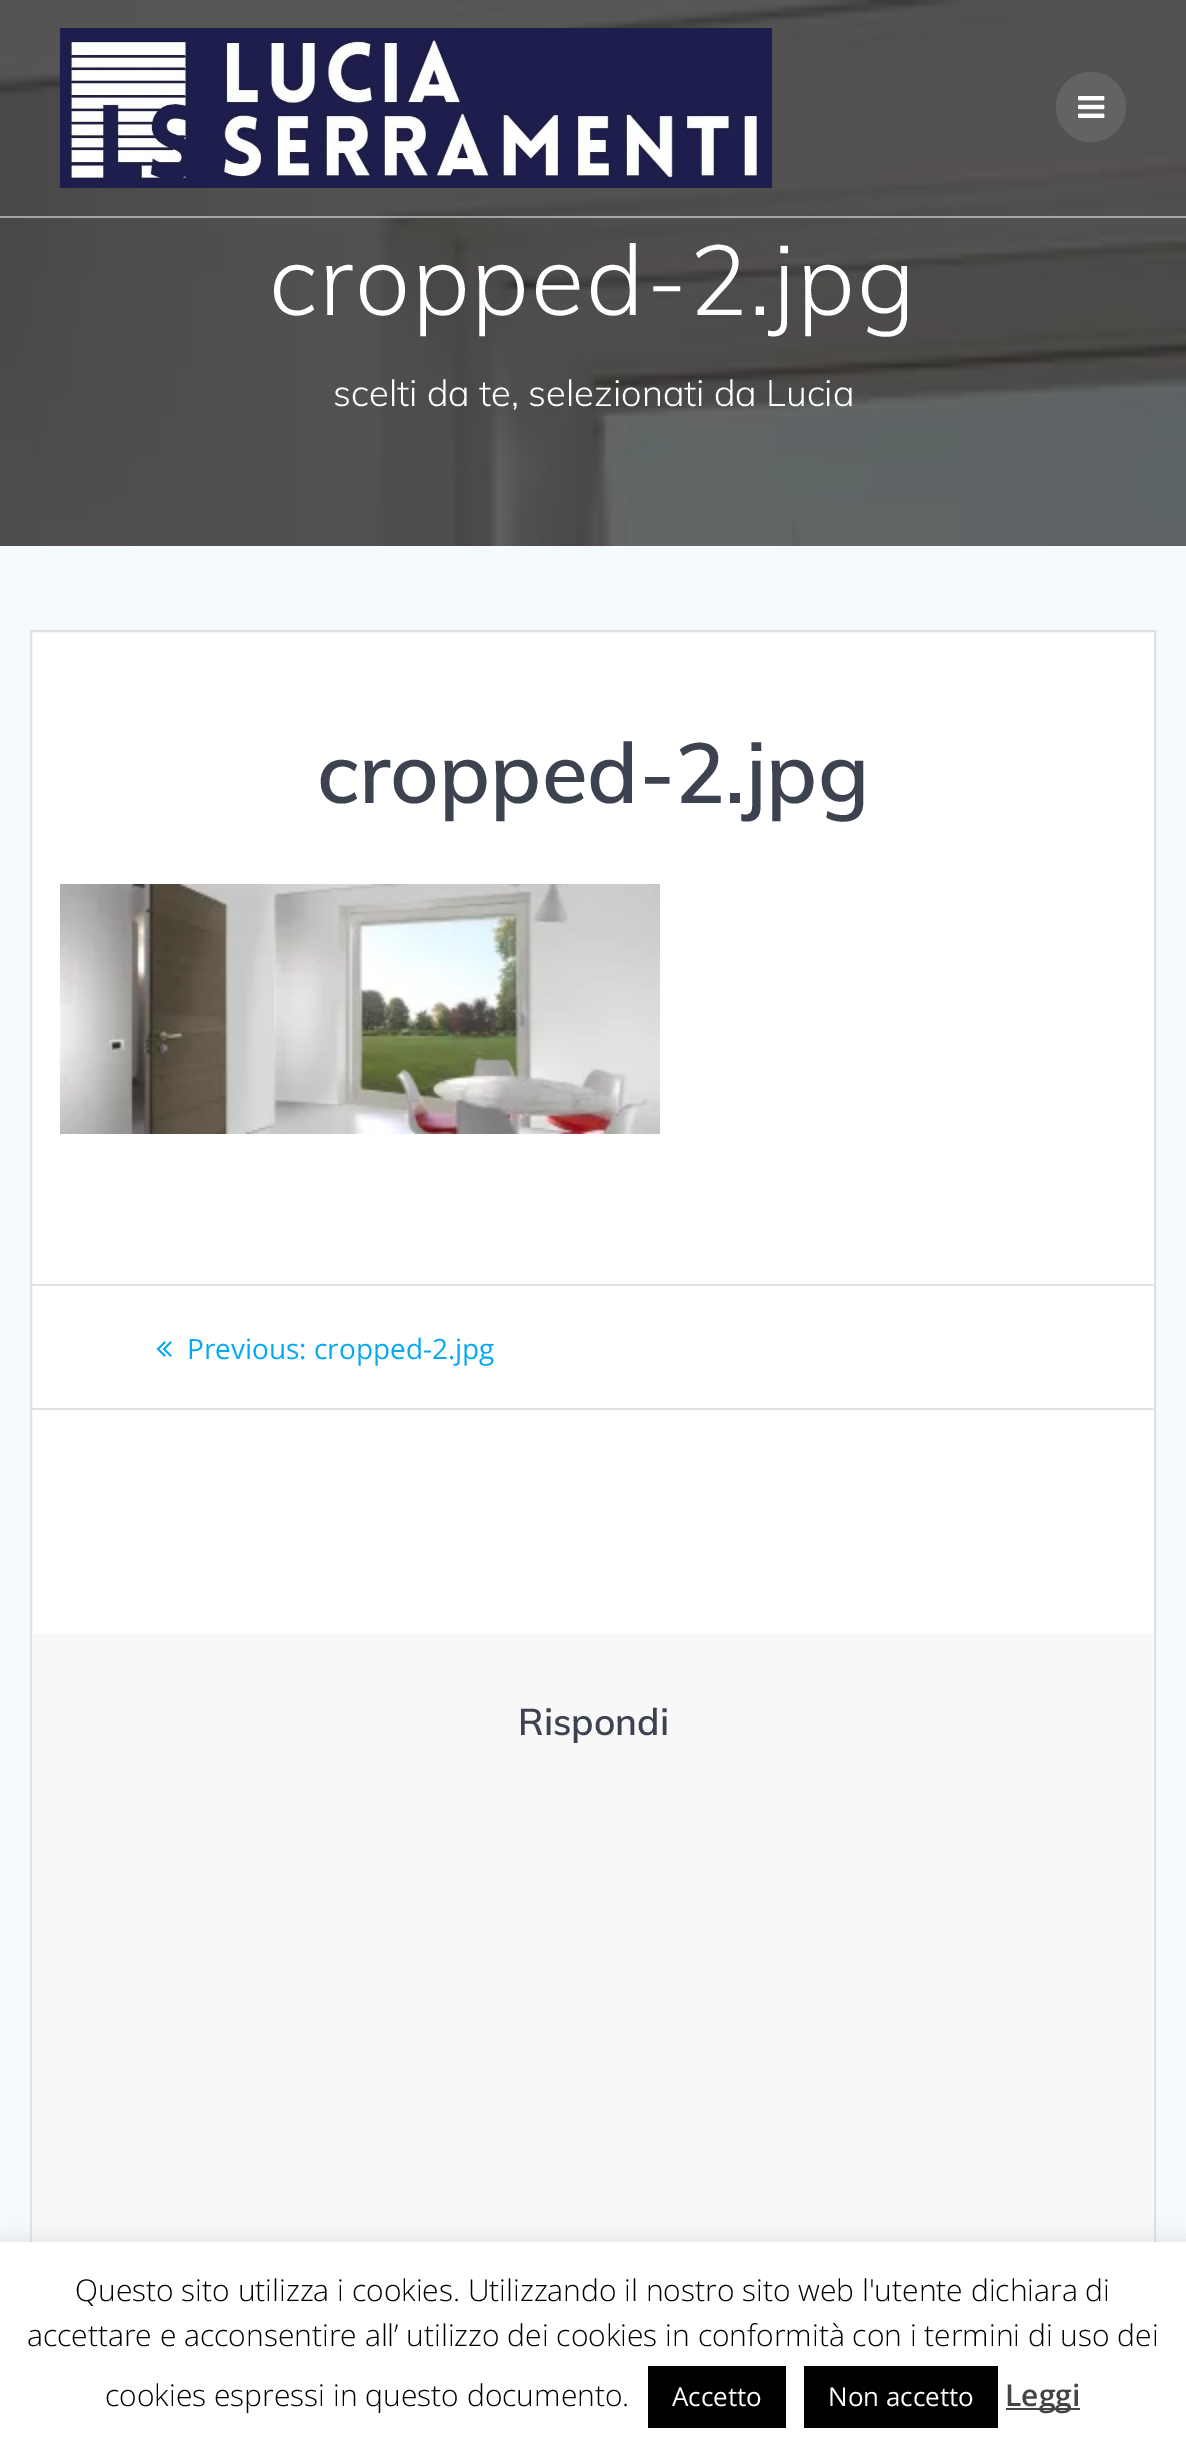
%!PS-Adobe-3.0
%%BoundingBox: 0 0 1186 2452
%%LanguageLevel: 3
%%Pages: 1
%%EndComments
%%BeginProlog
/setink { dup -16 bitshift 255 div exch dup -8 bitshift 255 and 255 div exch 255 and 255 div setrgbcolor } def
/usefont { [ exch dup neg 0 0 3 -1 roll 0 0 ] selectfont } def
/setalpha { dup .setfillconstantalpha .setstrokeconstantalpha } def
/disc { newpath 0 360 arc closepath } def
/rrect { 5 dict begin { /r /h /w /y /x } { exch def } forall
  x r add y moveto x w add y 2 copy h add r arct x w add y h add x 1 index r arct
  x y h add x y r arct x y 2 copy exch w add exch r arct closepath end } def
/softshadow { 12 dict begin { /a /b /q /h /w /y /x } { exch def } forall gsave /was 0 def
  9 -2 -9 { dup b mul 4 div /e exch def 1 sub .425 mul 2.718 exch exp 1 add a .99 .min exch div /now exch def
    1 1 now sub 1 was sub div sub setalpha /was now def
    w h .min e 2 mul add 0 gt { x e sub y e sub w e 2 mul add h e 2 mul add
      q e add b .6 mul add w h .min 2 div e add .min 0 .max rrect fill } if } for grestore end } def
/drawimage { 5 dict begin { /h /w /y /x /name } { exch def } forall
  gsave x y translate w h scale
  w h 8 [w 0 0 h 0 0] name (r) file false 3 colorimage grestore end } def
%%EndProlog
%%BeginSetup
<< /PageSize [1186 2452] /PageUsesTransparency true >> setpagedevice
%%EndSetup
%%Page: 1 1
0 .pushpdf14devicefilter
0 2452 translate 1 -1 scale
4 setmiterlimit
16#FFFFFF setink
0 0 1186 2452 rectfill
(img3.raw) 0 0 1186 546 drawimage
0.5 setalpha
0 216 1186 2 rectfill
1 setalpha
(img1.raw) 59 28 713 160 drawimage
16#636363 setink
1091 107 35 disc fill
(img2.raw) 1078 96 27 22 drawimage
/Muli-Light 98 usefont
16#FFFFFF setink
269 315 moveto 1.75 0 (cropped-2.jpg) ashow
/Muli-Light 36.4 usefont
333 406 moveto (scelti da te, selezionati da Lucia) show
(img4.raw) 791 521 10 25 drawimage
16#F5FAFD setink
0 546 1186 1696 rectfill
16#FFFFFF setink
32 632 1122 1002 rectfill
16#E0E1E1 setink
2 setlinewidth
31 631 1124 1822 rectstroke
/Muli-SemiBold 84 usefont
16#3C424F setink
317 803 moveto (cropped-2.jpg) show
(img5.raw) 60 884 600 250 drawimage
16#E0E1E1 setink
32 1284 1122 2 rectfill
32 1408 1122 2 rectfill
(img6.raw) 156 1341 16 16 drawimage
/OpenSans-Regular 28 usefont
16#03A9F4 setink
187 1359 moveto (Previous: cropped-2.jpg) show
16#F8F8F8 setink
32 1634 1122 608 rectfill
/Muli-SemiBold 37 usefont
16#3C424F setink
518 1735 moveto (Rispondi) show
16#ACABAB setink
0 2240 1186 210 0 10 0.3 softshadow
16#FFFFFF setink
0 2242 1186 210 rectfill
/OpenSans-Light 30 usefont
16#000000 setink
[
    [(Questo sito utilizza i cookies. Utilizzando il nostro sito web l'utente dichiara di) 75 2301]
    [(accettare e acconsentire all’ utilizzo dei cookies in conformità con i termini di uso dei) 27 2346]
    [(cookies espressi in questo documento.) 105 2406]
] { aload pop moveto show } forall
648 2366 138 62 rectfill
/OpenSans-Regular 26 usefont
16#FFFFFF setink
672 2406 moveto (Accetto) show
16#000000 setink
804 2366 194 62 rectfill
16#FFFFFF setink
828 2406 moveto (Non accetto) show
16#444444 setink
1006 2408 74 2 rectfill
/OpenSans-SemiBold 30 usefont
1005 2406 moveto (Leggi) show
.poppdf14devicefilter showpage
%%EOF
